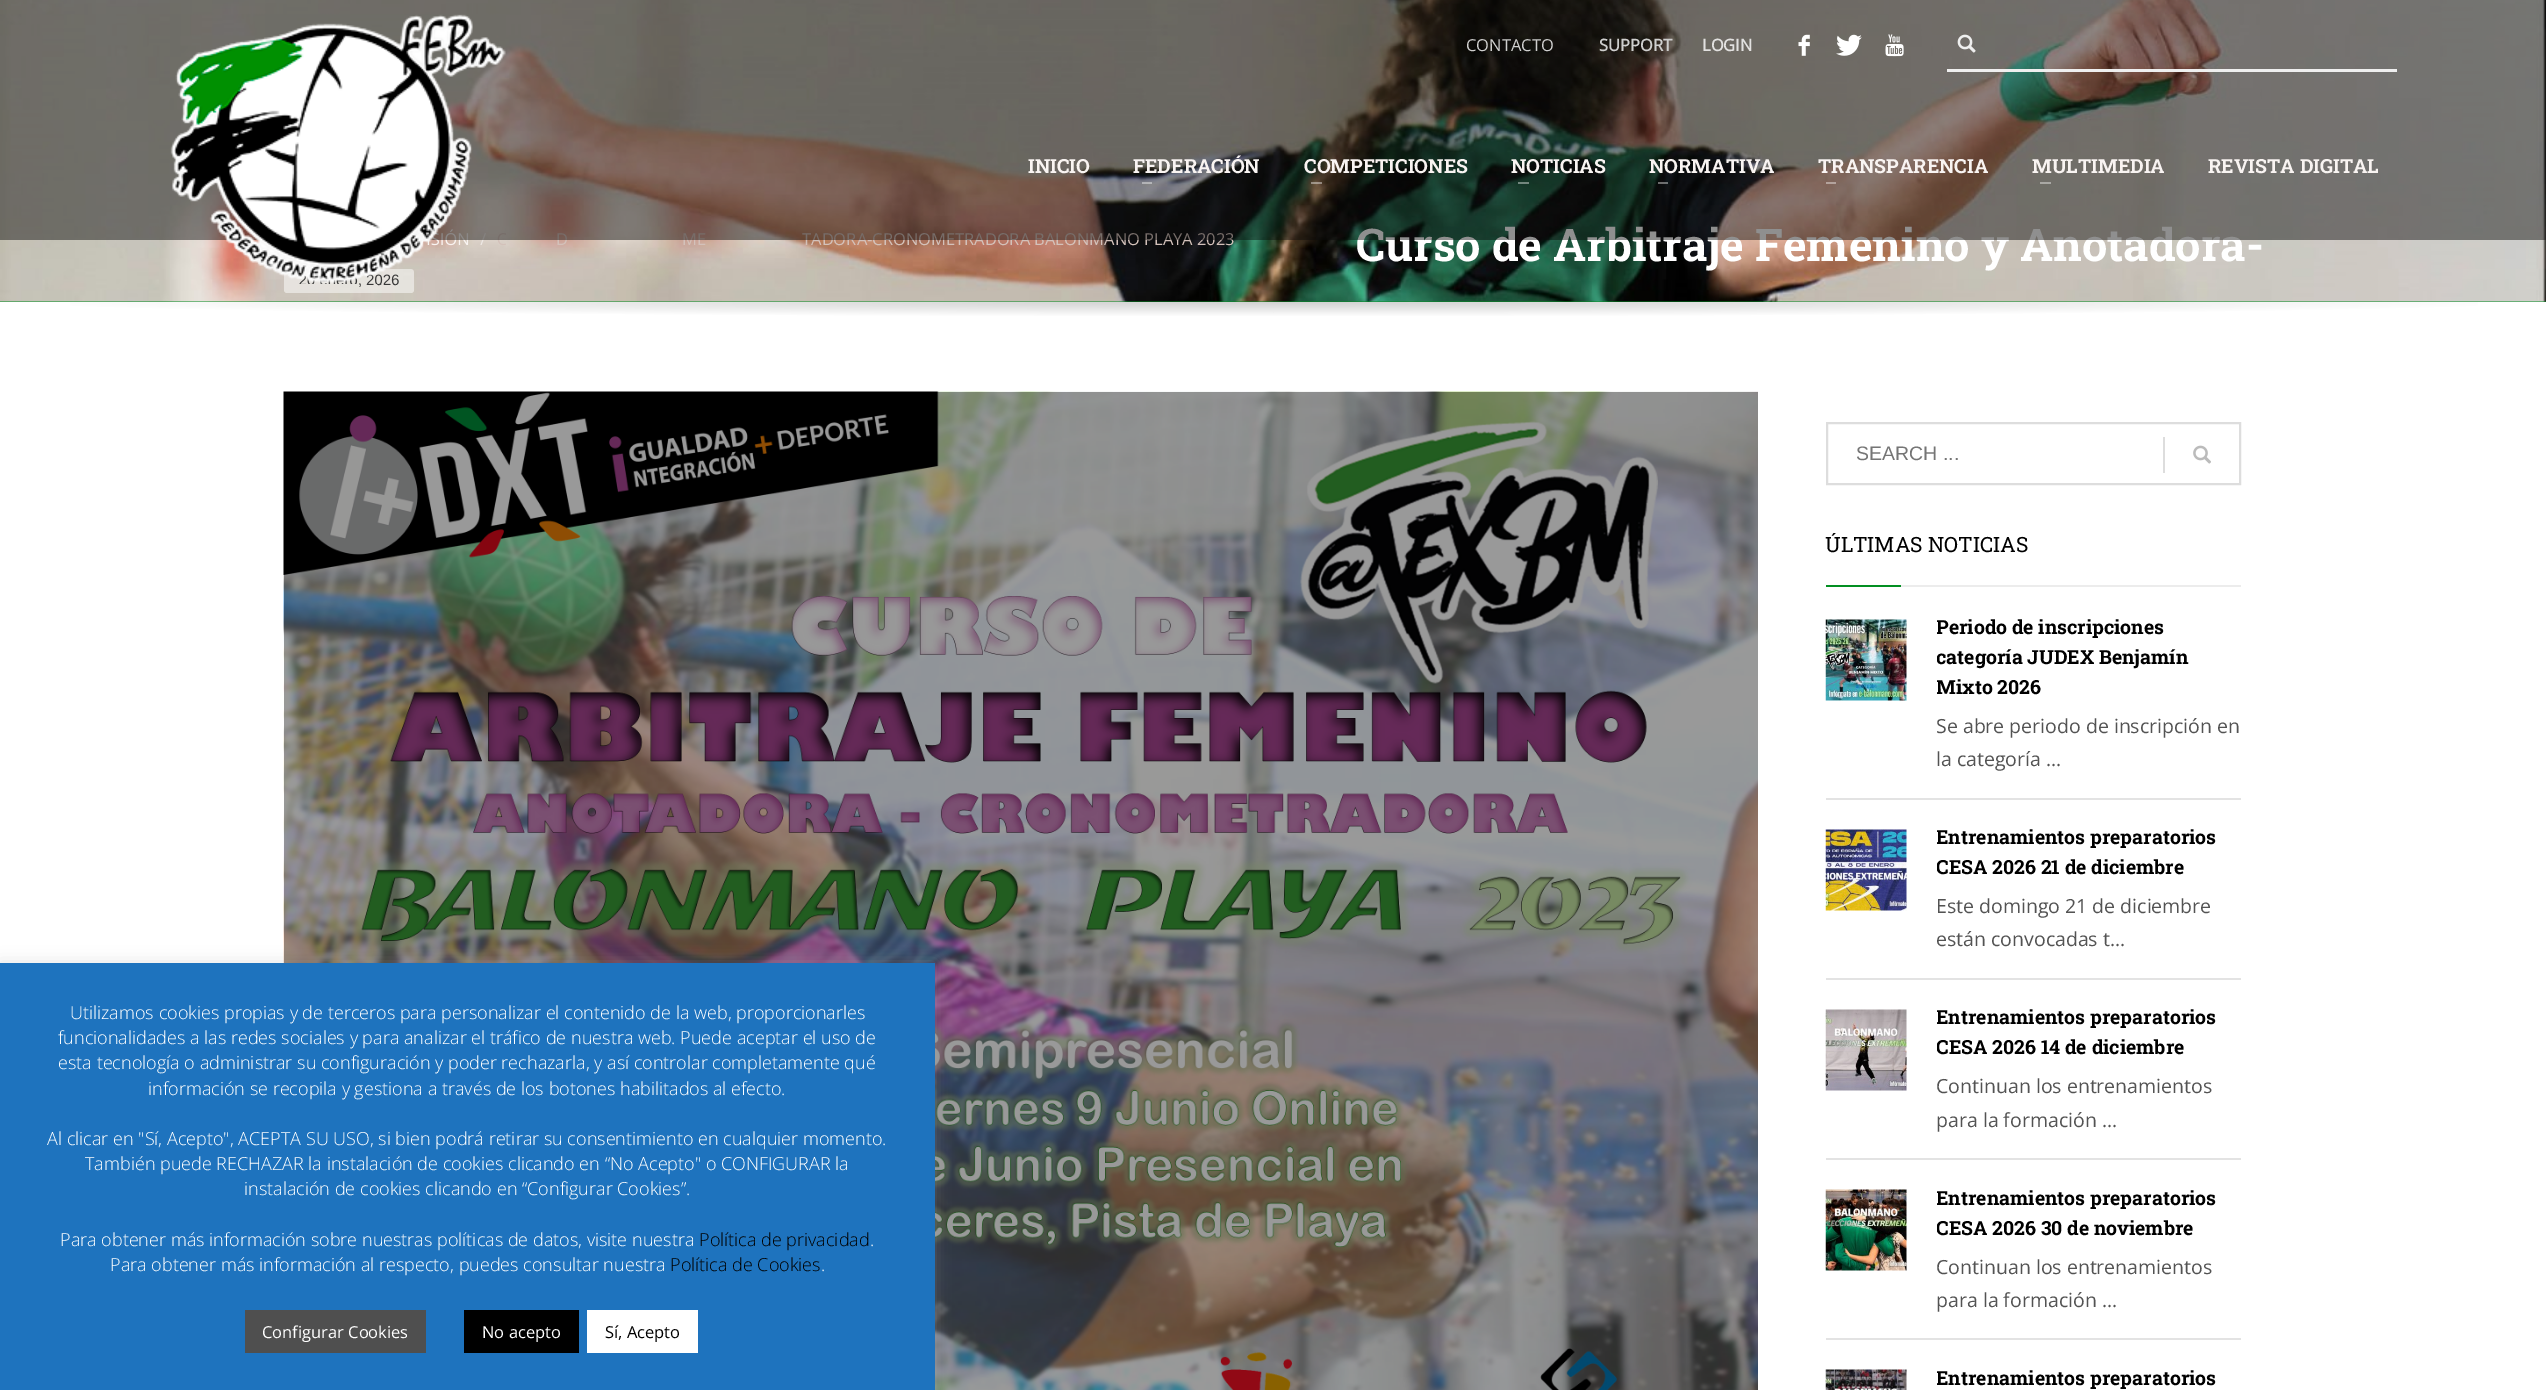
%!PS-Adobe-3.0
%%BoundingBox: 0 0 2546 1390
%%LanguageLevel: 3
%%Pages: 1
%%EndComments
%%BeginProlog
/setink { dup -16 bitshift 255 div exch dup -8 bitshift 255 and 255 div exch 255 and 255 div setrgbcolor } def
/usefont { [ exch dup neg 0 0 3 -1 roll 0 0 ] selectfont } def
/setalpha { dup .setfillconstantalpha .setstrokeconstantalpha } def
/rrect { 5 dict begin { /r /h /w /y /x } { exch def } forall
  x r add y moveto x w add y 2 copy h add r arct x w add y h add x 1 index r arct
  x y h add x y r arct x y 2 copy exch w add exch r arct closepath end } def
/softshadow { 12 dict begin { /a /b /q /h /w /y /x } { exch def } forall gsave /was 0 def
  9 -2 -9 { dup b mul 4 div /e exch def 1 sub .425 mul 2.718 exch exp 1 add a .99 .min exch div /now exch def
    1 1 now sub 1 was sub div sub setalpha /was now def
    w h .min e 2 mul add 0 gt { x e sub y e sub w e 2 mul add h e 2 mul add
      q e add b .6 mul add w h .min 2 div e add .min 0 .max rrect fill } if } for grestore end } def
/drawimage { 5 dict begin { /h /w /y /x /name } { exch def } forall
  gsave x y translate w h scale
  w h 8 [w 0 0 h 0 0] name (r) file false 3 colorimage grestore end } def
%%EndProlog
%%BeginSetup
<< /PageSize [2546 1390] /PageUsesTransparency true >> setpagedevice
%%EndSetup
%%Page: 1 1
0 .pushpdf14devicefilter
0 1390 translate 1 -1 scale
4 setmiterlimit
16#FFFFFF setink
0 0 2546 1390 rectfill
16#038F22 setink
0 301 2546 1 rectfill
(img6.raw) 0 0 2546 302 drawimage
/OpenSans-Regular 16.5 usefont
16#F9F4F2 setink
431 245 moveto (SIÓN) show
16#EDE8E4 setink
480 245 moveto (/) show
16#D3C1BA setink
[
    [(D) 556 245]
    [(ME) 682 245]
    [(TADORA-CRONOMETRADORA BALONMANO PLAYA 2023) 802 245]
] { aload pop moveto show } forall
/RobotoSlab-Bold 45 usefont
16#FFFFFF setink
1356 261 moveto (Curso de Arbitraje Femenino y Anotadora-) show
0.46 setalpha
16#0A0A0A setink
0 0 2546 240 rectfill
0.5 setalpha
16#FFFFFF setink
284 269 130 24 3 rrect fill
/LiberationSans-Regular 15 usefont
1 setalpha
16#383838 setink
358 285 moveto (, 2026) show
(img1.raw) 170 14 336 270 drawimage
/OpenSans-Regular 16.5 usefont
16#CFCFCE setink
1466 51 moveto (CONTACTO) show
/OpenSans-Bold 16.5 usefont
1599 51 moveto (SUPPORT) show
16#E2E1E0 setink
1702 51 moveto (LOGIN) show
(img2.raw) 1798 34 12 22 drawimage
(img3.raw) 1836 34 26 22 drawimage
(img4.raw) 1885 34 19 23 drawimage
(img5.raw) 1957 34 19 19 drawimage
16#EFEFEF setink
1947 69 450 3 rectfill
/RobotoSlab-Bold 19.5 usefont
16#F9F4F2 setink
1028 173 moveto (INICIO) show
1133 173 moveto (FEDERACIÓN) show
0.4 setalpha
16#FFFFFF setink
1142 182 10 2 rectfill
1 setalpha
16#F9F4F2 setink
1304 173 moveto (COMPETICIONES) show
0.4 setalpha
16#FFFFFF setink
1311 182 11 2 rectfill
1 setalpha
16#F9F4F2 setink
1511 173 moveto (NOTICIAS) show
0.4 setalpha
16#FFFFFF setink
1518 182 11 2 rectfill
1 setalpha
16#F9F4F2 setink
1649 173 moveto (NORMATIVA) show
0.4 setalpha
16#FFFFFF setink
1658 182 10 2 rectfill
1 setalpha
16#F9F4F2 setink
1818 173 moveto (TRANSPARENCIA) show
0.4 setalpha
16#FFFFFF setink
1826 182 10 2 rectfill
1 setalpha
16#F9F4F2 setink
2032 173 moveto (MULTIMEDIA) show
16#A9A8A4 setink
2040 182 11 2 rectfill
16#F9F4F2 setink
2208 173 moveto (REVISTA DIGITAL) show
gsave 70 302 moveto 2478 302 lineto 2478 316 lineto 70 316 lineto closepath clip newpath 1274 302 translate 1801 21 scale
<< /ShadingType 3 /ColorSpace /DeviceRGB /Coords [0 0 0 0 0 1] /Extend [true true] /Function << /FunctionType 3 /Domain [0 1] /Functions [<< /FunctionType 2 /Domain [0 1] /C0 [0.82 0.82 0.82] /C1 [1 1 1] /N 1 >> << /FunctionType 2 /Domain [0 1] /C0 [1 1 1] /C1 [1 1 1] /N 1 >>] /Bounds [0.7] /Encode [0 1 0 1] >> >> shfill grestore
(img7.raw) 283 391 1475 999 drawimage
16#DDDDDD setink
2 setlinewidth
1827 423 413 61 rectstroke
/LiberationSans-Regular 19.5 usefont
16#757575 setink
1856 460 moveto (SEARCH ...) show
16#DDDDDD setink
2163 437 2 36 rectfill
(img8.raw) 2193 445 18 19 drawimage
/RobotoSlab-Regular 21 usefont
16#000000 setink
1825 552 moveto (ÚLTIMAS NOTICIAS) show
[
    [1826 585 75 2 16#038F22]
    [1901 585 340 2 16#ECECEC]
    [1826 798 415 2 16#E3E3E3]
] { aload pop setink rectfill } forall
(img9.raw) 1825 619 82 82 drawimage
gsave
1937 612 304 90 rectclip
/RobotoSlab-Bold 19.5 usefont
16#000000 setink
[
    [(Periodo de inscripciones) 1936 634]
    [(categoría JUDEX Benjamín) 1936 664]
    [(Mixto 2026) 1936 694]
] { aload pop moveto show } forall
grestore
/OpenSans-Regular 19.5 usefont
16#535353 setink
1936 733 moveto (Se abre periodo de inscripción en) show
1936 766 moveto (la categoría ...) show
16#E3E3E3 setink
1826 978 415 2 rectfill
(img10.raw) 1825 829 82 82 drawimage
gsave
1937 822 304 60 rectclip
/RobotoSlab-Bold 19.5 usefont
16#000000 setink
1936 844 moveto (Entrenamientos preparatorios) show
1936 874 moveto (CESA 2026 21 de diciembre) show
grestore
16#535353 setink
1936 913 moveto (Este domingo 21 de diciembre) show
1936 946 moveto (están convocadas t...) show
16#E3E3E3 setink
1826 1158 415 2 rectfill
(img11.raw) 1825 1009 82 82 drawimage
gsave
1937 1002 304 60 rectclip
/RobotoSlab-Bold 19.5 usefont
16#000000 setink
1936 1024 moveto (Entrenamientos preparatorios) show
1936 1054 moveto (CESA 2026 14 de diciembre) show
grestore
16#535353 setink
1936 1093 moveto (Continuan los entrenamientos) show
1936 1127 moveto (para la formación ...) show
16#E3E3E3 setink
1826 1338 415 2 rectfill
(img12.raw) 1825 1189 82 82 drawimage
gsave
1937 1182 304 60 rectclip
/RobotoSlab-Bold 19.5 usefont
16#000000 setink
1936 1205 moveto (Entrenamientos preparatorios) show
1936 1235 moveto (CESA 2026 30 de noviembre) show
grestore
16#535353 setink
1936 1274 moveto (Continuan los entrenamientos) show
1936 1307 moveto (para la formación ...) show
(img13.raw) 1825 1369 82 21 drawimage
gsave
1937 1362 304 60 rectclip
/RobotoSlab-Bold 19.5 usefont
16#000000 setink
1936 1385 moveto (Entrenamientos preparatorios) show
grestore
16#ACABAB setink
0 962 935 427 0 7.5 0.3 softshadow
16#1E73BE setink
0 963 935 427 rectfill
/OpenSans-Light 18 usefont
16#FFFFFF setink
[
    [(Utilizamos cookies propias y de terceros para personalizar el contenido de la web, proporcionarles) 70 1019]
    [(funcionalidades a las redes sociales y para analizar el tráfico de nuestra web. Puede aceptar el uso de) 58 1044]
    [(esta tecnología o administrar su configuración y poder rechazarla, y así controlar completamente qué) 58 1069]
    [(información se recopila y gestiona a través de los botones habilitados al efecto.) 148 1095]
    [(Al clicar en "Sí, Acepto", ACEPTA SU USO, si bien podrá retirar su consentimiento en cualquier momento.) 47 1145]
    [(También puede RECHAZAR la instalación de cookies clicando en “No Acepto" o CONFIGURAR la) 85 1170]
    [(instalación de cookies clicando en “Configurar Cookies”.) 244 1195]
    [(Para obtener más información sobre nuestras políticas de datos, visite nuestra) 60 1246]
] { aload pop moveto show } forall
16#000000 setink
699 1246 moveto (Política de privacidad) show
16#FFFFFF setink
870 1246 moveto (.) show
110 1271 moveto (Para obtener más información al respecto, puedes consultar nuestra) show
16#000000 setink
670 1271 moveto (Política de Cookies) show
16#FFFFFF setink
821 1271 moveto (.) show
16#4F4F4F setink
245 1310 181 43 rectfill
/OpenSans-Regular 16.5 usefont
16#FFFFFF setink
262 1338 moveto (Configurar Cookies) show
16#000000 setink
464 1310 115 43 rectfill
16#FFFFFF setink
482 1338 moveto (No acepto) show
587 1310 111 43 rectfill
16#000000 setink
605 1338 moveto (Sí, Acepto) show
.poppdf14devicefilter showpage
%%EOF
